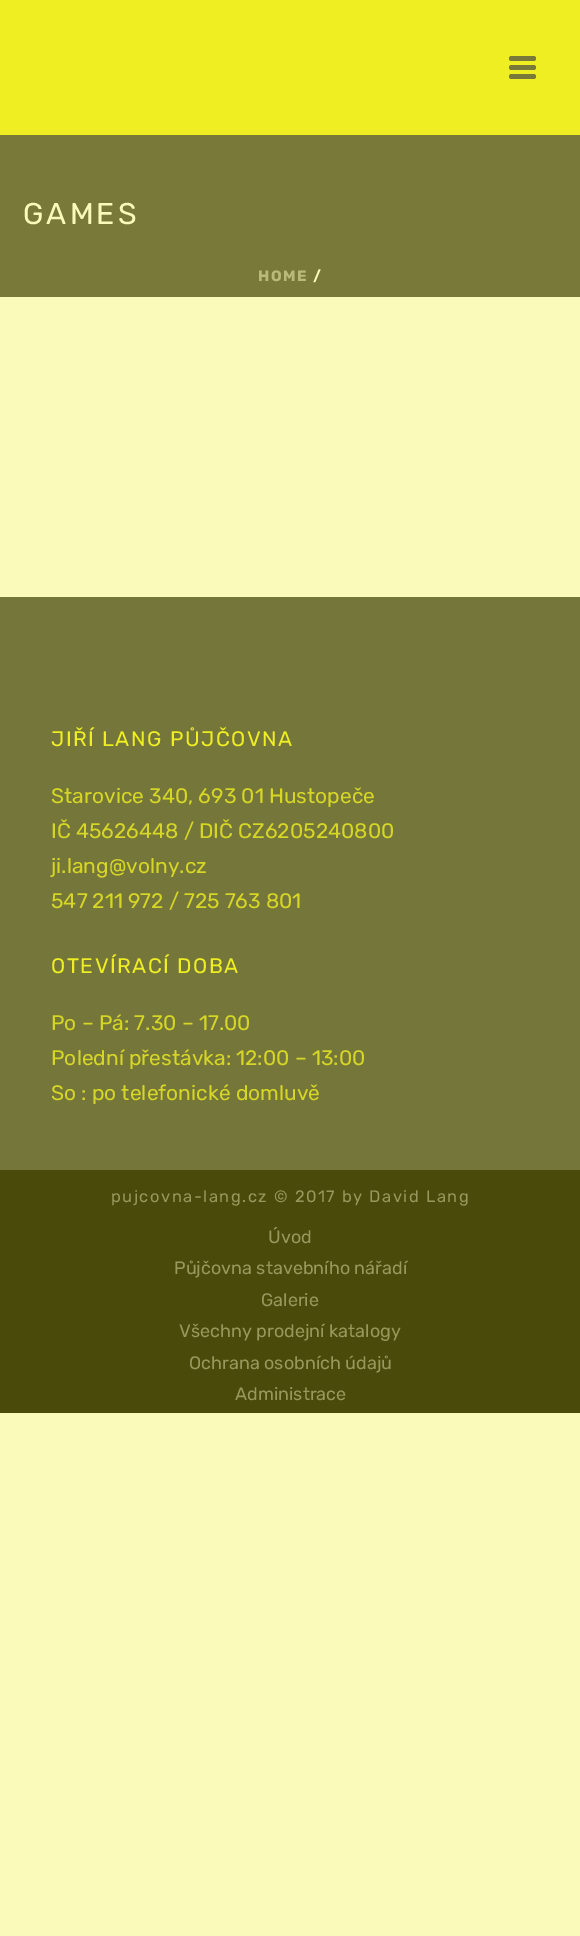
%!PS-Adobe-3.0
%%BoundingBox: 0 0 580 1936
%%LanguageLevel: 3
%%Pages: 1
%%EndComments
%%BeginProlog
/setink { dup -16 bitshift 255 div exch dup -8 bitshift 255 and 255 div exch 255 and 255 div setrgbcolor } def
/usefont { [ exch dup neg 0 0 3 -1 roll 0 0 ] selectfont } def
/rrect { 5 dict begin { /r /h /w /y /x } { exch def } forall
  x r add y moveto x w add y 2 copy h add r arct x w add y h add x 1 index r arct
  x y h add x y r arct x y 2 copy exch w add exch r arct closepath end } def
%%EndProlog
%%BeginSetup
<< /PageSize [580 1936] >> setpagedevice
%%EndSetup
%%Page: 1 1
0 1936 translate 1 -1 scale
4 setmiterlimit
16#FAFABA setink
0 0 580 1936 rectfill
16#797939 setink
0 135 580 162 rectfill
16#EEEE22 setink
0 0 580 135 rectfill
16#797939 setink
509 56 27 5 2.5 rrect fill
509 65 27 5 2.5 rrect fill
509 74 27 5 2.5 rrect fill
/Rubik-Regular 30 usefont
16#FAFABA setink
23 224 moveto 3 0 (GAMES) ashow
/Rubik-Bold 15 usefont
16#BABA7A setink
258 281 moveto 1.5 0 (HOME) ashow
16#FAFABA setink
313 281 moveto 1.5 0 (/) ashow
16#74763A setink
0 597 580 573 rectfill
/Rubik-Regular 21 usefont
16#EEEE22 setink
51 746 moveto 1.5 0 (JIŘÍ LANG PŮJČOVNA) ashow
16#D6D627 setink
[
    [(Starovice 340, 693 01 Hustopeče) 51 803]
    [(IČ 45626448 / DIČ CZ6205240800) 51 838]
    [(ji.lang@volny.cz) 51 873]
    [(547 211 972 / 725 763 801) 51 908]
] { aload pop moveto show } forall
16#EEEE22 setink
51 973 moveto 1.5 0 (OTEVÍRACÍ DOBA) ashow
16#D6D627 setink
[
    [(Po – Pá: 7.30 – 17.00) 51 1030]
    [(Polední přestávka: 12:00 – 13:00) 51 1065]
    [(So : po telefonické domluvě) 51 1100]
] { aload pop moveto show } forall
16#4A4A0B setink
0 1170 580 243 rectfill
/Rubik-Regular 16.5 usefont
16#97985B setink
111 1202 moveto 1.5 0 (pujcovna-lang.cz © 2017 by David Lang) ashow
/Rubik-Regular 18 usefont
[
    [(Úvod) 268 1243]
    [(Půjčovna stavebního nářadí) 174 1274]
    [(Galerie) 261 1306]
    [(Všechny prodejní katalogy) 179 1337]
    [(Ochrana osobních údajů) 189 1369]
    [(Administrace) 235 1400]
] { aload pop moveto show } forall
showpage
%%EOF
